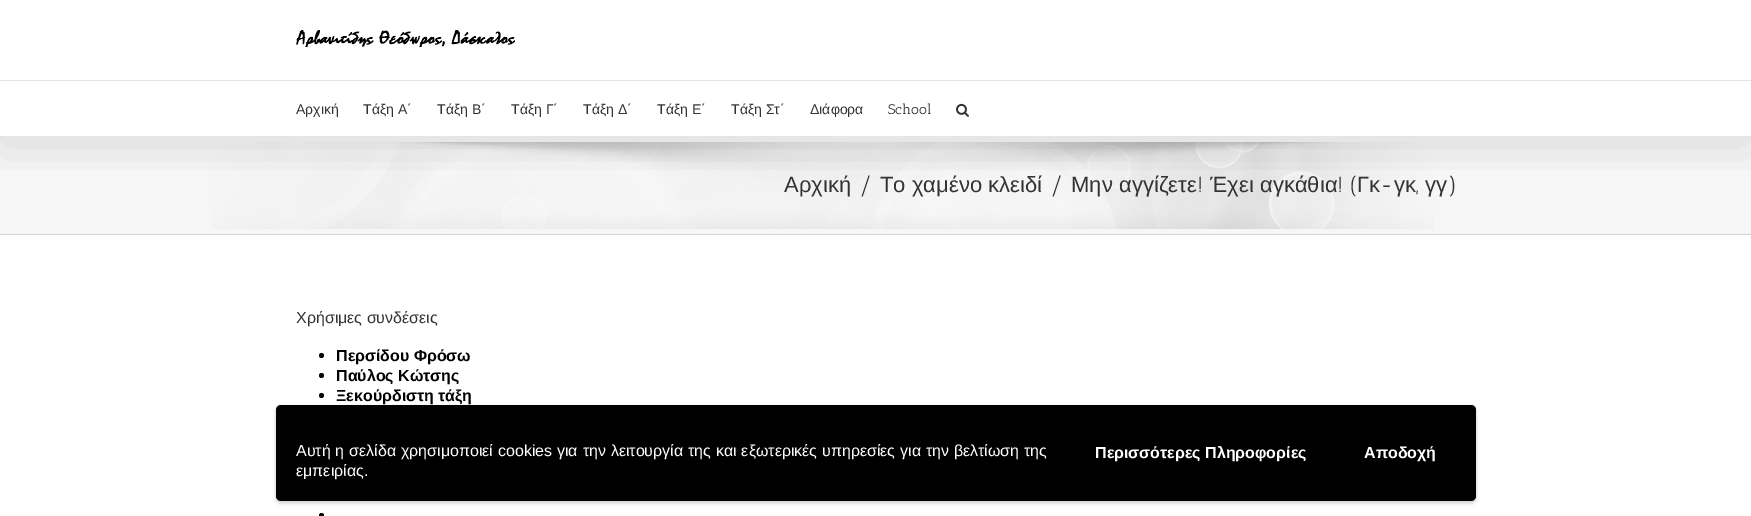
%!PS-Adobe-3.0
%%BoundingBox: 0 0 1751 516
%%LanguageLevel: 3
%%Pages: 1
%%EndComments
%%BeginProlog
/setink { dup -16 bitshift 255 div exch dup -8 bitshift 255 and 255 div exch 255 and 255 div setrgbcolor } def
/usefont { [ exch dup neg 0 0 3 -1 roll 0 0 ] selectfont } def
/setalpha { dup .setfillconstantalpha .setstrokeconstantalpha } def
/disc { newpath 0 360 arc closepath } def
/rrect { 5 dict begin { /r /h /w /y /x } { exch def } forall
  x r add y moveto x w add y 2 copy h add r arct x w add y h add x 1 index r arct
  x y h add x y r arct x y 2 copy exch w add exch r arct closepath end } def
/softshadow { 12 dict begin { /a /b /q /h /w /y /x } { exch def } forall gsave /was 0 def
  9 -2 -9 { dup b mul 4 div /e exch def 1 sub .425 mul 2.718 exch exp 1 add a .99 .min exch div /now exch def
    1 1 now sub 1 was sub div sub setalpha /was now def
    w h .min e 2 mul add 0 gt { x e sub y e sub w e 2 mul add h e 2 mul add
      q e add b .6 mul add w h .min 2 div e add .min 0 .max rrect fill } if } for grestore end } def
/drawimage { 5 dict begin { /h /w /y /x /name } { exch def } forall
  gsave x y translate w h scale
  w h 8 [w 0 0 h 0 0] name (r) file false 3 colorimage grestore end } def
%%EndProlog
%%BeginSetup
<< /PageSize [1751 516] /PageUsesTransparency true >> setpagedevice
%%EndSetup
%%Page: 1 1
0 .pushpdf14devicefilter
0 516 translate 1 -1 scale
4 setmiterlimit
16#FFFFFF setink
0 0 1751 516 rectfill
16#F6F6F6 setink
0 137 1751 97 rectfill
(img3.raw) 212 142 1222 87 drawimage
gsave
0 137 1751 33 rectclip
16#000000 setink
2 12 1747 131 0 25 0.14 softshadow
grestore
16#E5E5E5 setink
0 80 1751 1 rectfill
(img1.raw) 296 30 219 17 drawimage
16#FFFFFF setink
0 135 1751 1 rectfill
16#E5E5E5 setink
0 136 1751 1 rectfill
/LiberationSans-Regular 14 usefont
16#333333 setink
[
    [(Αρχική) 296 114]
    [(Τάξη Α΄) 363 114]
    [(Τάξη Β΄) 437 114]
    [(Τάξη Γ΄) 511 114]
    [(Τάξη Δ΄) 583 114]
    [(Τάξη Ε΄) 657 114]
    [(Τάξη Στ΄) 731 114]
    [(Διάφορα) 810 114]
] { aload pop moveto show } forall
/AnticSlab-Regular 14 usefont
888 114 moveto (School) show
(img2.raw) 956 103 13 14 drawimage
16#D2D3D4 setink
0 234 1751 1 rectfill
/LiberationSans-Regular 22 usefont
16#333333 setink
784 192 moveto (Αρχική) show
/AnticSlab-Regular 22 usefont
859 192 moveto (/) show
/LiberationSans-Regular 22 usefont
880 192 moveto (Το χαμένο κλειδί) show
/AnticSlab-Regular 22 usefont
1050 192 moveto (/) show
/LiberationSans-Regular 22 usefont
1071 192 moveto (Μην) show
1119 192 moveto (αγγίζετε) show
/AnticSlab-Regular 22 usefont
1197 192 moveto (!) show
/LiberationSans-Regular 22 usefont
1210 192 moveto (Έχει) show
1260 192 moveto (αγκάθια) show
/AnticSlab-Regular 22 usefont
1337 192 moveto (! \() show
/LiberationSans-Regular 22 usefont
1357 192 moveto (Γκ) show
/AnticSlab-Regular 22 usefont
1380 192 moveto (-) show
/LiberationSans-Regular 22 usefont
1394 192 moveto (γκ) show
1425 192 moveto (γγ) show
/AnticSlab-Regular 22 usefont
1447 192 moveto (\)) show
1416 192 moveto (,) show
/LiberationSans-Regular 16 usefont
296 323 moveto (Χρήσιμες συνδέσεις) show
16#0A0A0A setink
321.5 355.5 2.5 disc fill
/LiberationSans-Bold 16 usefont
16#000000 setink
336 361 moveto (Περσίδου Φρόσω) show
16#0A0A0A setink
321.5 375.5 2.5 disc fill
16#000000 setink
336 381 moveto (Παύλος Κώτσης) show
16#0A0A0A setink
321.5 395.5 2.5 disc fill
16#000000 setink
336 401 moveto (Ξεκούρδιστη τάξη) show
16#0A0A0A setink
321.5 515.5 2.5 disc fill
16#000000 setink
276 407 1200 96 5 2 0.2 softshadow
276 405 1200 96 5 rrect fill
/LiberationSans-Regular 16 usefont
16#FFFFFF setink
296 456 moveto 0.4 0 32 (Αυτή η σελίδα χρησιμοποιεί cookies για την λειτουργία της και εξωτερικές υπηρεσίες για την βελτίωση της) widthshow
296 476 moveto (εμπειρίας.) show
/LiberationSans-Bold 16 usefont
1095 458 moveto (Περισσότερες Πληροφορίες) show
1364 458 moveto (Αποδοχή) show
.poppdf14devicefilter showpage
%%EOF
